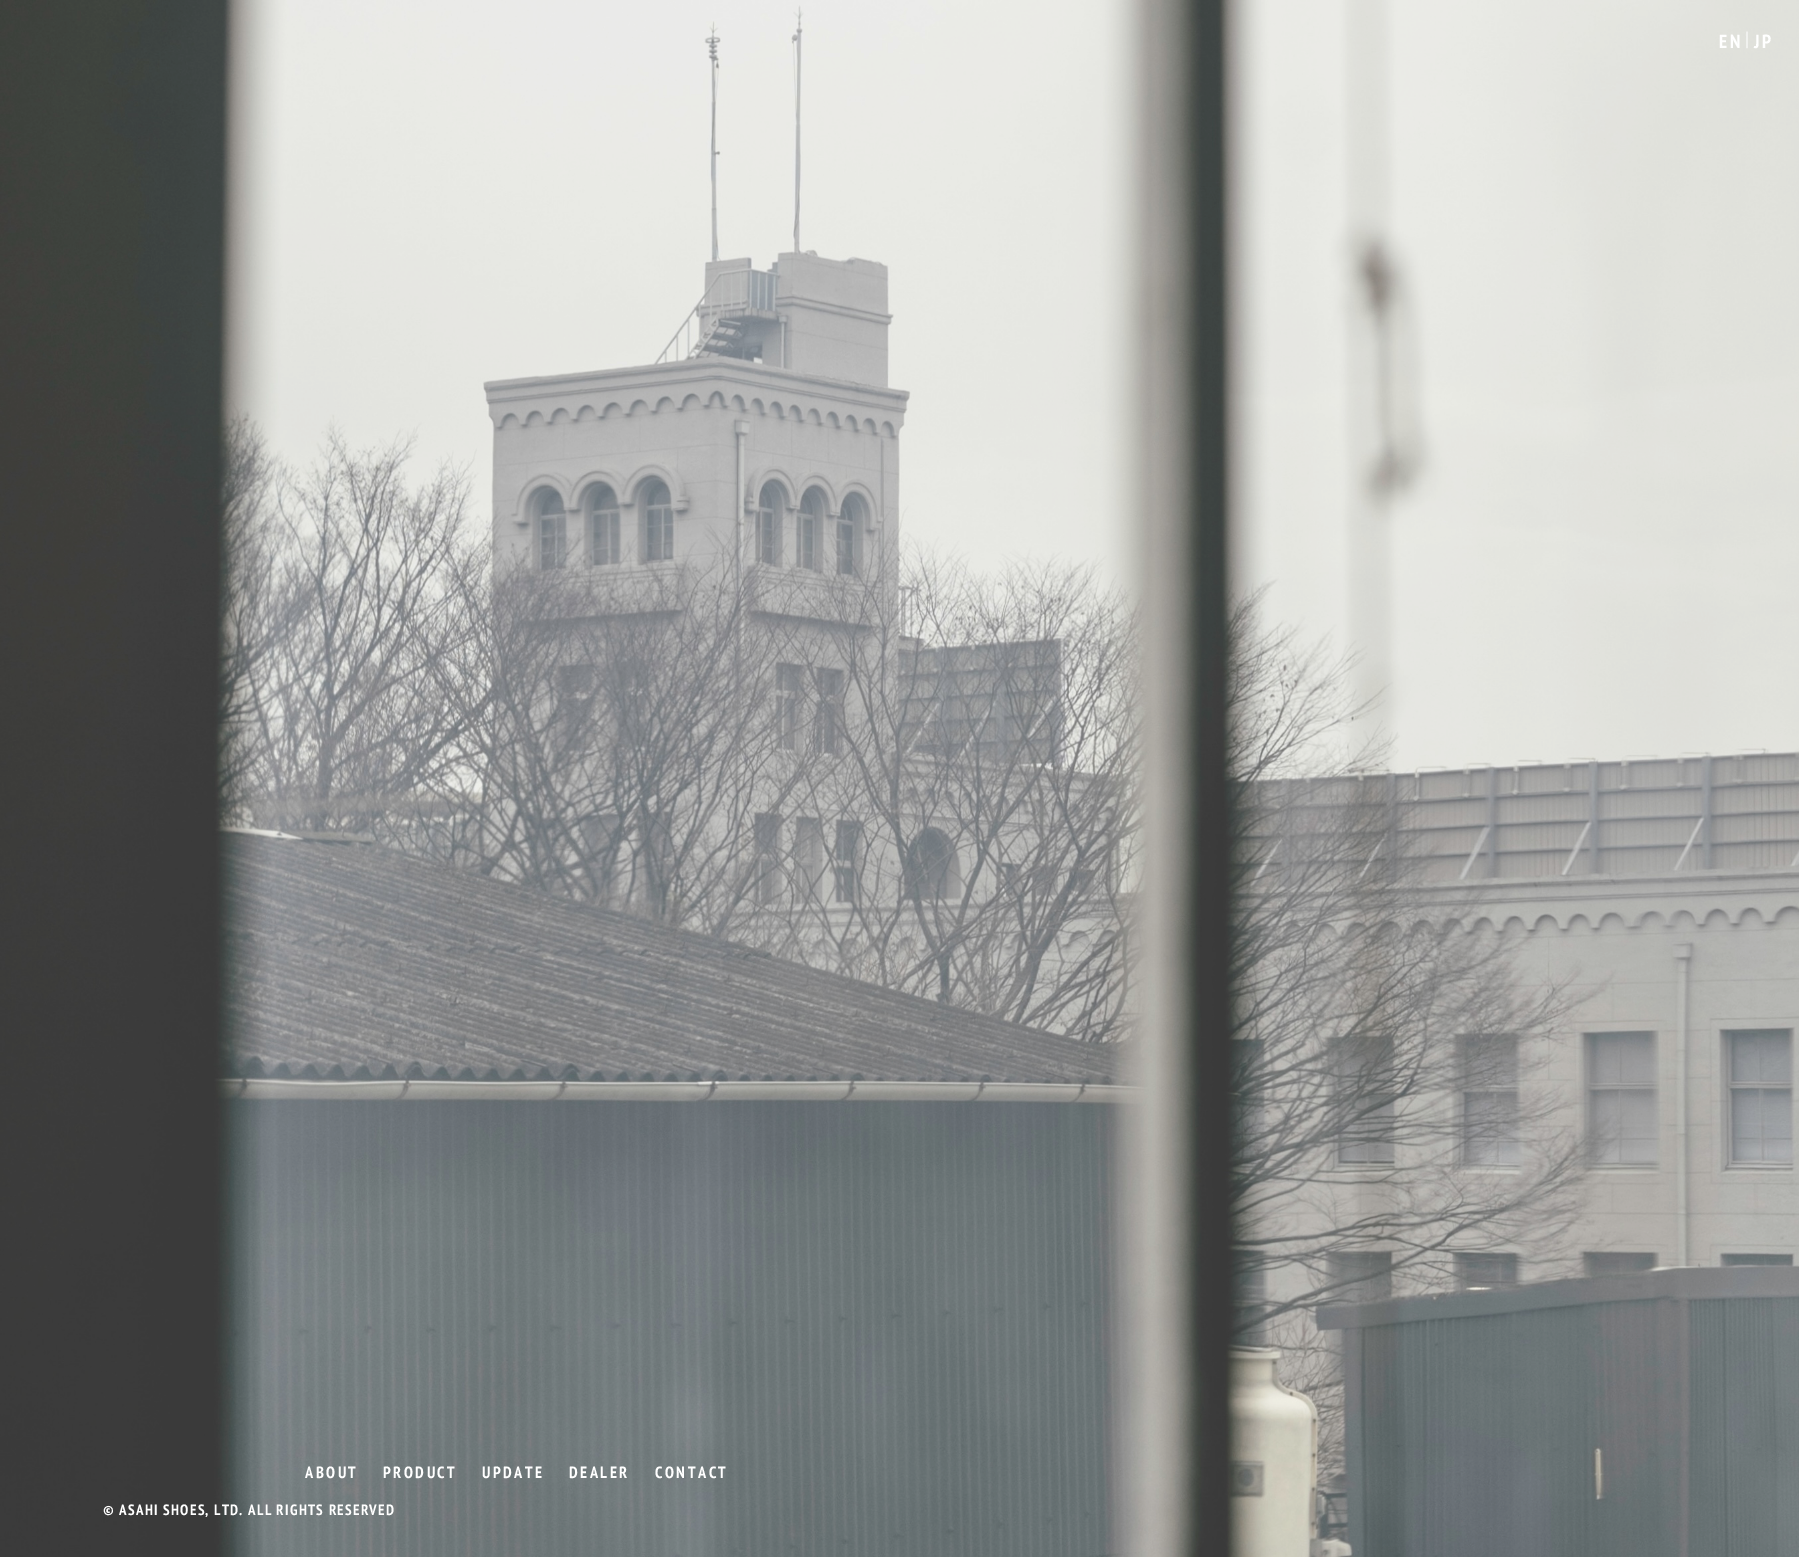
%!PS-Adobe-3.0
%%BoundingBox: 0 0 1799 1557
%%LanguageLevel: 3
%%Pages: 1
%%EndComments
%%BeginProlog
/setink { dup -16 bitshift 255 div exch dup -8 bitshift 255 and 255 div exch 255 and 255 div setrgbcolor } def
/usefont { [ exch dup neg 0 0 3 -1 roll 0 0 ] selectfont } def
/drawimage { 5 dict begin { /h /w /y /x /name } { exch def } forall
  gsave x y translate w h scale
  w h 8 [w 0 0 h 0 0] name (r) file false 3 colorimage grestore end } def
%%EndProlog
%%BeginSetup
<< /PageSize [1799 1557] >> setpagedevice
%%EndSetup
%%Page: 1 1
0 1557 translate 1 -1 scale
4 setmiterlimit
16#FFFFFF setink
0 0 1799 1557 rectfill
(img1.raw) 0 0 1799 1557 drawimage
/PTSansNarrow-Bold 19 usefont
1719 48 moveto 2.5 0 (EN) ashow
/NotoSansJP-Regular 15 usefont
1745 44 moveto (|) show
/PTSansNarrow-Bold 19 usefont
1754 48 moveto 2.5 0 (JP) ashow
/PTSansNarrow-Bold 16.25 usefont
305 1478 moveto 2.5 0 (ABOUT) ashow
383 1478 moveto 2.5 0 (PRODUCT) ashow
482 1478 moveto 2.5 0 (UPDATE) ashow
569 1478 moveto 2.5 0 (DEALER) ashow
655 1478 moveto 2.5 0 (CONTACT) ashow
/PTSansNarrow-Bold 15 usefont
103 1515 moveto 1.25 0 (© ASAHI SHOES, LTD. ALL RIGHTS RESERVED) ashow
showpage
%%EOF
